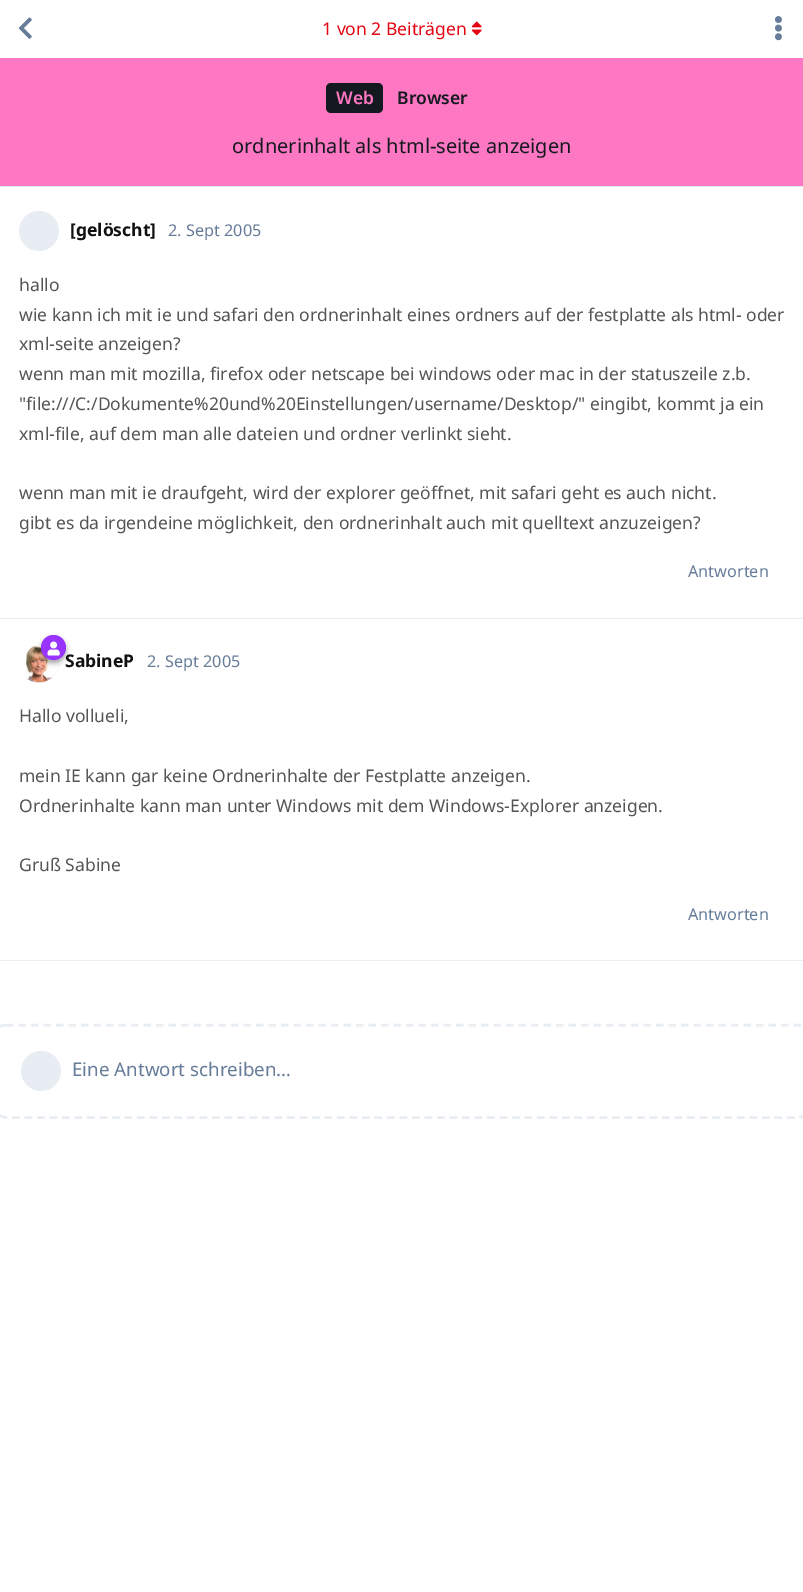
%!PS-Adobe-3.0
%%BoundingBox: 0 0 803 1592
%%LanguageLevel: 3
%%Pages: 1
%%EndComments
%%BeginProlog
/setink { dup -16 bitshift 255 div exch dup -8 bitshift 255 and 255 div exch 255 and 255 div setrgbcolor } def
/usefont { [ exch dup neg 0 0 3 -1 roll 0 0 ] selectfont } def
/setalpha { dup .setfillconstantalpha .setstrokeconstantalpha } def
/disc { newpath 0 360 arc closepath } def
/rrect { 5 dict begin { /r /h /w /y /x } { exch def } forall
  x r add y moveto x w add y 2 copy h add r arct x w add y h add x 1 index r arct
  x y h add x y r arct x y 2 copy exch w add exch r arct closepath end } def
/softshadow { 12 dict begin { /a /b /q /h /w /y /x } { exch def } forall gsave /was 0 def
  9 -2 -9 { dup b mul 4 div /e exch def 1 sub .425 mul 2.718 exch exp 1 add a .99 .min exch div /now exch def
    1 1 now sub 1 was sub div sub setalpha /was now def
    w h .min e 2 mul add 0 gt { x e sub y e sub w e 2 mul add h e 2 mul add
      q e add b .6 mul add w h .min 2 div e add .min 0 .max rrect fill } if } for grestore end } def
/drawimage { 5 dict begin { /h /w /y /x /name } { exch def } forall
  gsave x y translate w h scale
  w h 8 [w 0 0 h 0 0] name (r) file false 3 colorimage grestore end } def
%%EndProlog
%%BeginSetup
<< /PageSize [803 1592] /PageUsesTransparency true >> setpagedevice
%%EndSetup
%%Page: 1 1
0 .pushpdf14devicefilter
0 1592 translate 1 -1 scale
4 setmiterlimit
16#FFFFFF setink
0 0 803 1592 rectfill
(img1.raw) 18 17 14 22 drawimage
16#E8ECF3 setink
0 186 803 1 rectfill
/NotoSans-Regular 17.5 usefont
16#E40613 setink
322 35 moveto (1 von 2 Beiträgen) show
(img2.raw) 471 21 11 15 drawimage
(img3.raw) 774 16 8 25 drawimage
16#E8ECF3 setink
0 618 803 1 rectfill
39 231 20 disc fill
/NotoSans-Bold 17.5 usefont
16#111111 setink
70 236 moveto ([gelöscht]) show
/NotoSans-Regular 16.25 usefont
16#667C99 setink
168 236 moveto (2. Sept 2005) show
/NotoSans-Regular 17.5 usefont
16#555555 setink
[
    [(hallo) 19 291]
    [(wie kann ich mit ie und safari den ordnerinhalt eines ordners auf der festplatte als html- oder) 19 321]
    [(xml-seite anzeigen?) 19 350]
    [(wenn man mit mozilla, firefox oder netscape bei windows oder mac in der statuszeile z.b.) 19 380]
    [("file:///C:/Dokumente%20und%20Einstellungen/username/Desktop/" eingibt, kommt ja ein) 19 410]
    [(xml-file, auf dem man alle dateien und ordner verlinkt sieht.) 19 440]
    [(wenn man mit ie draufgeht, wird der explorer geöffnet, mit safari geht es auch nicht.) 19 499]
    [(gibt es da irgendeine möglichkeit, den ordnerinhalt auch mit quelltext anzuzeigen?) 19 529]
] { aload pop moveto show } forall
/NotoSans-Regular 16.25 usefont
16#667C99 setink
688 577 moveto (Antworten) show
16#E8ECF3 setink
0 960 803 1 rectfill
39 663 20 disc fill
(img5.raw) 19 643 40 40 drawimage
16#000000 setink
41 638 25 25 12.5 2.5 0.35 softshadow
/NotoSans-Bold 17.5 usefont
16#111111 setink
65 667 moveto (SabineP) show
16#9933FF setink
53.5 647.5 12.5 disc fill
(img4.raw) 47 641 13 15 drawimage
/NotoSans-Regular 16.25 usefont
16#667C99 setink
147 667 moveto (2. Sept 2005) show
/NotoSans-Regular 17.5 usefont
16#555555 setink
[
    [(Hallo vollueli,) 19 722]
    [(mein IE kann gar keine Ordnerinhalte der Festplatte anzeigen.) 19 782]
    [(Ordnerinhalte kann man unter Windows mit dem Windows-Explorer anzeigen.) 19 812]
    [(Gruß Sabine) 19 871]
] { aload pop moveto show } forall
/NotoSans-Regular 16.25 usefont
16#667C99 setink
688 920 moveto (Antworten) show
16#E8ECF3 setink
2.5 setlinewidth
[7.5 5] 0 setdash
6 1025 moveto 797.5 1025 lineto 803.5 1025 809 1030 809 1036 curveto 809 1106 lineto 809 1112.5 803.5 1117.5 797.5 1117.5 curveto 6 1117.5 lineto 0 1117.5 -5 1112.5 -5 1106 curveto -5 1036 lineto -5 1030 0 1025 6 1025 curveto closepath stroke
41 1071 20 disc fill
/NotoSans-Regular 18.75 usefont
16#667C99 setink
72 1076 moveto (Eine Antwort schreiben…) show
16#FD77C2 setink
0 58 803 128 rectfill
16#14191F setink
326 83 57 30 5 rrect fill
/NotoSans-SemiBold 17.5 usefont
16#FD77C2 setink
336 104 moveto (Web) show
16#14191F setink
397 104 moveto (Browser) show
/NotoSans-Regular 20 usefont
232 153 moveto (ordnerinhalt als html-seite anzeigen) show
.poppdf14devicefilter showpage
%%EOF
